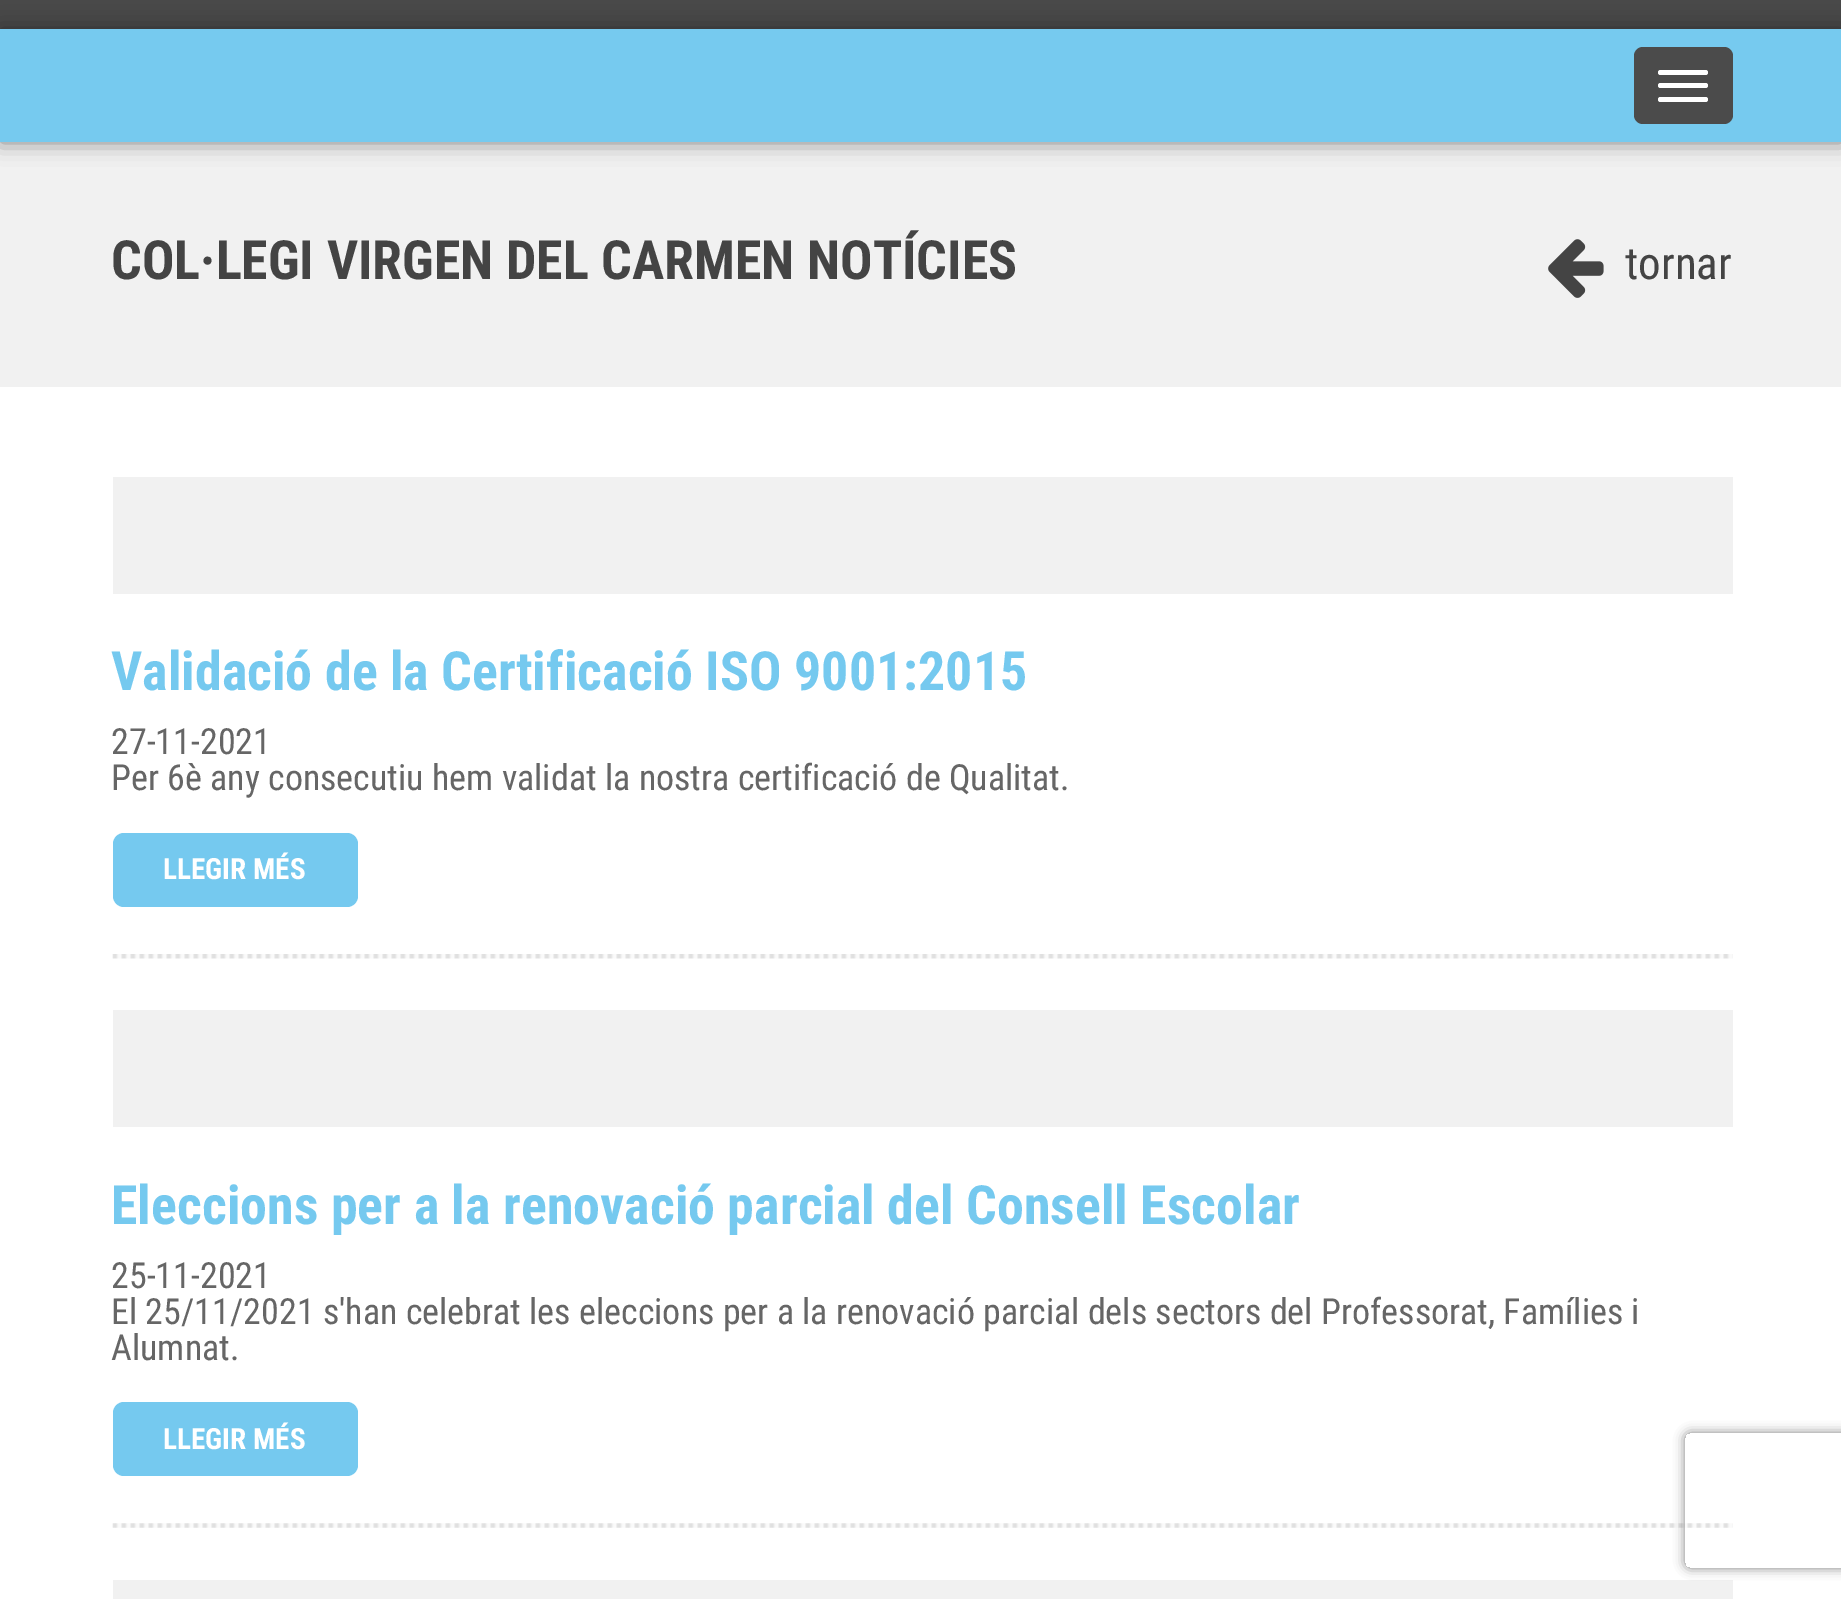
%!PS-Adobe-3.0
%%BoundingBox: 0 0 1841 1599
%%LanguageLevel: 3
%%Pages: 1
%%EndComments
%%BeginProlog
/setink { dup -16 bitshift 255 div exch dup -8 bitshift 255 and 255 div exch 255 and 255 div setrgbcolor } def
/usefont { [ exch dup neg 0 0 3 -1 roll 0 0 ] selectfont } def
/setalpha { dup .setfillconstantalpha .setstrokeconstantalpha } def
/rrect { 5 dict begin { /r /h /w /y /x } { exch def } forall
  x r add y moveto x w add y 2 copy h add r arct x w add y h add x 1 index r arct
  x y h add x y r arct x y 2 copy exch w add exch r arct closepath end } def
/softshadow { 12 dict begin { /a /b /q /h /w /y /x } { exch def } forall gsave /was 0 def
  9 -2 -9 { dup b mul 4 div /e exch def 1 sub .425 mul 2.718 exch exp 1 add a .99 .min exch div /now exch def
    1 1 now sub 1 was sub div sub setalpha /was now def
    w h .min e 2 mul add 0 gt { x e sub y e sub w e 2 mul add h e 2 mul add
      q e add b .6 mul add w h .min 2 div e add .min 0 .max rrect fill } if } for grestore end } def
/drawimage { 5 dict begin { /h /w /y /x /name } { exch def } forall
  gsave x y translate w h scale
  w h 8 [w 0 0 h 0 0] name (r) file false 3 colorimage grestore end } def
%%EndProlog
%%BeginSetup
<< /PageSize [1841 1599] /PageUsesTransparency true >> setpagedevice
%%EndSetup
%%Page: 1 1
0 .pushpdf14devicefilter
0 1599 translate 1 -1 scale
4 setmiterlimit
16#FFFFFF setink
0 0 1841 1599 rectfill
16#494949 setink
0 0 1841 29 rectfill
16#F1F1F1 setink
0 142 1841 245 rectfill
16#131215 setink
0 29 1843 113 0 11 0.52 softshadow
16#76CAEF setink
0 29 1841 113 rectfill
16#4B4B4B setink
1634 47 99 77 9 rrect fill
16#FFFFFF setink
1658 70 50 5 2.5 rrect fill
1658 83 50 5 2.5 rrect fill
1658 97 50 5 2.5 rrect fill
/RobotoCondensed-Bold 54 usefont
16#444444 setink
111 279 moveto (COL·LEGI VIRGEN DEL CARMEN NOTÍCIES) show
(img1.raw) 1548 239 56 59 drawimage
/RobotoCondensed-Regular 45 usefont
1625 279 moveto (tornar) show
16#F1F1F1 setink
113 477 1620 117 rectfill
/RobotoCondensed-Bold 54 usefont
16#75C9EF setink
111 690 moveto (Validació de la Certificació ISO 9001:2015) show
/RobotoCondensed-Regular 36 usefont
16#666666 setink
111 754 moveto (27-11-2021) show
111 790 moveto (Per 6è any consecutiu hem validat la nostra certificació de Qualitat.) show
16#75C9EF setink
113 833 245 74 11 rrect fill
/RobotoCondensed-Bold 29.25 usefont
16#FFFFFF setink
163 879 moveto (LLEGIR MÉS) show
(img2.raw) 112 954 1621 5 drawimage
16#F1F1F1 setink
113 1010 1620 117 rectfill
/RobotoCondensed-Bold 54 usefont
16#75C9EF setink
111 1224 moveto (Eleccions per a la renovació parcial del Consell Escolar) show
/RobotoCondensed-Regular 36 usefont
16#666666 setink
[
    [(25-11-2021) 111 1288]
    [(El 25/11/2021 s'han celebrat les eleccions per a la renovació parcial dels sectors del Professorat, Famílies i) 111 1324]
    [(Alumnat.) 111 1360]
] { aload pop moveto show } forall
16#75C9EF setink
113 1402 245 74 11 rrect fill
/RobotoCondensed-Bold 29.25 usefont
16#FFFFFF setink
163 1449 moveto (LLEGIR MÉS) show
(img3.raw) 112 1523 1621 5 drawimage
16#F1F1F1 setink
113 1580 1620 19 rectfill
gsave
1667 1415 moveto 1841 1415 lineto 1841 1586 lineto 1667 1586 lineto closepath 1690 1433 moveto 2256 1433 lineto 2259 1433 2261 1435 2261 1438 curveto 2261 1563 lineto 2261 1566 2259 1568 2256 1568 curveto 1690 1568 lineto 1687 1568 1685 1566 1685 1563 curveto 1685 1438 lineto 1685 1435 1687 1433 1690 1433 curveto closepath eoclip newpath
16#808080 setink
1685 1433 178 135 5 5.5 1 softshadow
grestore
.poppdf14devicefilter showpage
%%EOF
